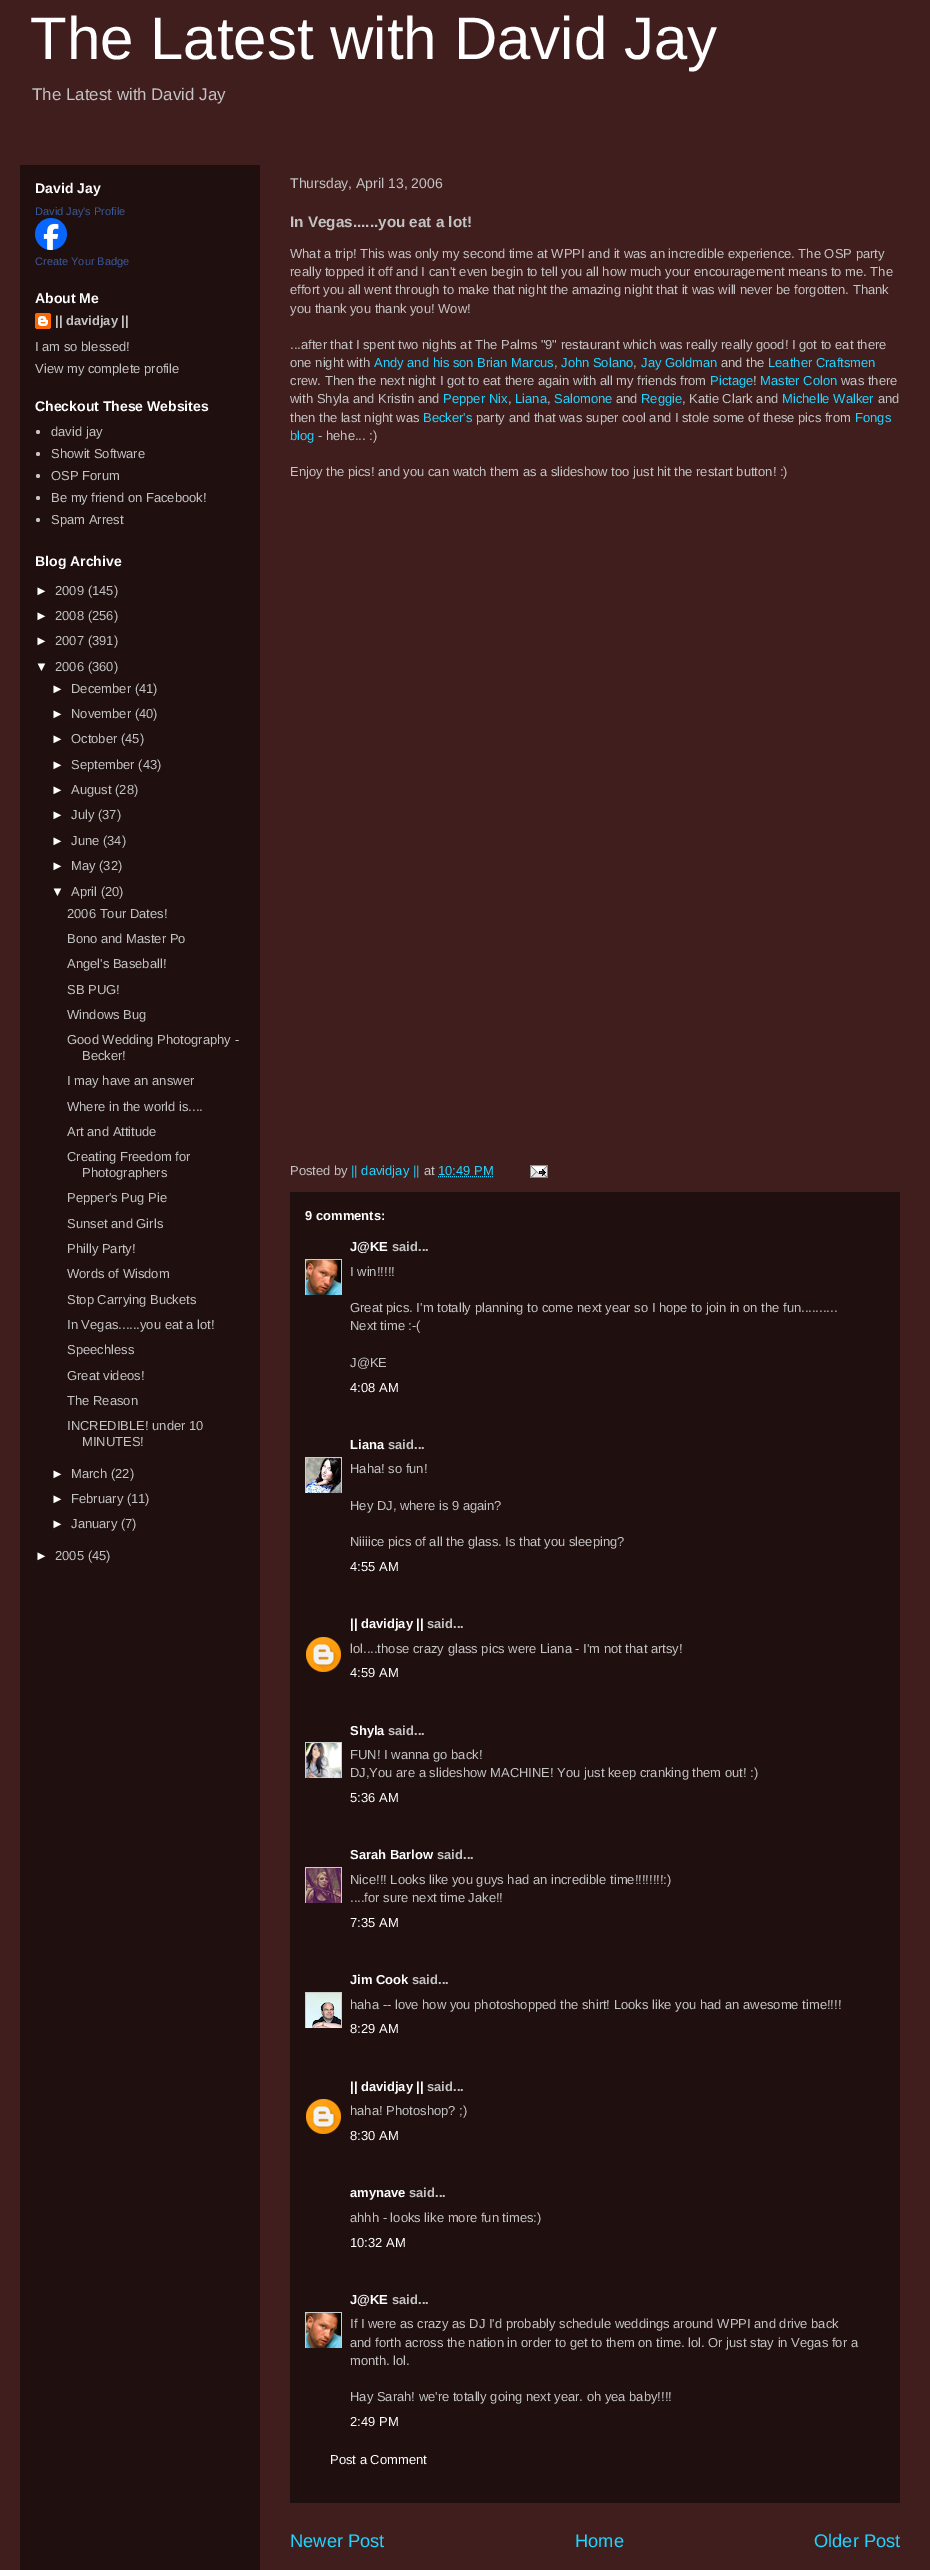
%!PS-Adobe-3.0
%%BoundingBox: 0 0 930 2570
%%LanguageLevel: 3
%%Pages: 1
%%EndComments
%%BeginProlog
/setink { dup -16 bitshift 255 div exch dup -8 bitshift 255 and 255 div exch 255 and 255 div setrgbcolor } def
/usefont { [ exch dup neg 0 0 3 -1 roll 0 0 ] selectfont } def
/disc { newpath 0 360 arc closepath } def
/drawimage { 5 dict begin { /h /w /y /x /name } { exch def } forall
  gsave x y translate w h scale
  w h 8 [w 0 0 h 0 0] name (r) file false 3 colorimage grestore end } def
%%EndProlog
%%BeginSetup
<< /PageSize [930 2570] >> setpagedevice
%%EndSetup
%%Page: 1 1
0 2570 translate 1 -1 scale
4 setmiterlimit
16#411E1E setink
0 0 930 2570 rectfill
/LiberationSans-Regular 60 usefont
16#FFFFFF setink
30 59 moveto (The Latest with David Jay) show
/LiberationSans-Regular 16.9 usefont
16#C3C3C3 setink
32 100 moveto (The Latest with David Jay) show
16#200F0F setink
20 165 240 2405 rectfill
/LiberationSans-Bold 14 usefont
16#FFFFFF setink
35 193 moveto (David Jay) show
/LiberationSans-Regular 11 usefont
16#3B5998 setink
35 215 moveto (David Jay's Profile) show
(img1.raw) 35 218 32 32 drawimage
35 265 moveto (Create Your Badge) show
/LiberationSans-Bold 14 usefont
16#FFFFFF setink
35 303 moveto (About Me) show
(img2.raw) 35 313 16 16 drawimage
/LiberationSans-Bold 13 usefont
16#C3C3C3 setink
55 325 moveto (|| davidjay ||) show
/LiberationSans-Regular 13 usefont
35 351 moveto (I am so blessed!) show
35 373 moveto (View my complete profile) show
/LiberationSans-Bold 14 usefont
16#FFFFFF setink
35 411 moveto (Checkout These Websites) show
16#C3C3C3 setink
38 432 2 disc fill
/LiberationSans-Regular 13 usefont
51 436 moveto (david jay) show
38 454 2 disc fill
51 458 moveto (Showit Software) show
38 476 2 disc fill
51 480 moveto (OSP Forum) show
38 498 2 disc fill
51 502 moveto (Be my friend on Facebook!) show
38 520 2 disc fill
51 524 moveto (Spam Arrest) show
/LiberationSans-Bold 14 usefont
16#FFFFFF setink
35 566 moveto (Blog Archive) show
/LiberationSans-Regular 13 usefont
35 595 moveto (►) show
16#C3C3C3 setink
55 595 moveto (2009 \(145\)) show
16#FFFFFF setink
35 620 moveto (►) show
16#C3C3C3 setink
55 620 moveto (2008 \(256\)) show
16#FFFFFF setink
35 645 moveto (►) show
16#C3C3C3 setink
55 645 moveto (2007 \(391\)) show
16#FFFFFF setink
35 671 moveto (▼) show
16#C3C3C3 setink
55 671 moveto (2006 \(360\)) show
16#FFFFFF setink
51 693 moveto (►) show
16#C3C3C3 setink
71 693 moveto (December \(41\)) show
16#FFFFFF setink
51 718 moveto (►) show
16#C3C3C3 setink
71 718 moveto (November \(40\)) show
16#FFFFFF setink
51 743 moveto (►) show
16#C3C3C3 setink
71 743 moveto (October \(45\)) show
16#FFFFFF setink
51 769 moveto (►) show
16#C3C3C3 setink
71 769 moveto (September \(43\)) show
16#FFFFFF setink
51 794 moveto (►) show
16#C3C3C3 setink
71 794 moveto (August \(28\)) show
16#FFFFFF setink
51 819 moveto (►) show
16#C3C3C3 setink
71 819 moveto (July \(37\)) show
16#FFFFFF setink
51 845 moveto (►) show
16#C3C3C3 setink
71 845 moveto (June \(34\)) show
16#FFFFFF setink
51 870 moveto (►) show
16#C3C3C3 setink
71 870 moveto (May \(32\)) show
16#FFFFFF setink
51 896 moveto (▼) show
16#C3C3C3 setink
[
    [(April \(20\)) 71 896]
    [(2006 Tour Dates!) 67 918]
    [(Bono and Master Po) 67 943]
    [(Angel's Baseball!) 67 968]
    [(SB PUG!) 67 994]
    [(Windows Bug) 67 1019]
    [(Good Wedding Photography -) 67 1044]
    [(Becker!) 82 1060]
    [(I may have an answer) 67 1085]
    [(Where in the world is....) 67 1111]
    [(Art and Attitude) 67 1136]
    [(Creating Freedom for) 67 1161]
    [(Photographers) 82 1177]
    [(Pepper's Pug Pie) 67 1202]
    [(Sunset and Girls) 67 1228]
    [(Philly Party!) 67 1253]
    [(Words of Wisdom) 67 1278]
    [(Stop Carrying Buckets) 67 1304]
    [(In Vegas......you eat a lot!) 67 1329]
    [(Speechless) 67 1354]
    [(Great videos!) 67 1380]
    [(The Reason) 67 1405]
    [(INCREDIBLE! under 10) 67 1430]
    [(MINUTES!) 82 1446]
] { aload pop moveto show } forall
16#FFFFFF setink
51 1478 moveto (►) show
16#C3C3C3 setink
71 1478 moveto (March \(22\)) show
16#FFFFFF setink
51 1503 moveto (►) show
16#C3C3C3 setink
71 1503 moveto (February \(11\)) show
16#FFFFFF setink
51 1528 moveto (►) show
16#C3C3C3 setink
71 1528 moveto (January \(7\)) show
16#FFFFFF setink
35 1560 moveto (►) show
16#C3C3C3 setink
55 1560 moveto (2005 \(45\)) show
/LiberationSans-Regular 14 usefont
290 188 moveto (Thursday, April 13, 2006) show
/LiberationSans-Bold 15.25 usefont
290 227 moveto (In Vegas......you eat a lot!) show
/LiberationSans-Regular 13 usefont
[
    [(What a trip! This was only my second time at WPPI and it was an incredible experience. The OSP party) 290 258]
    [(really topped it off and I can't even begin to tell you all how much your encouragement means to me. The) 290 276]
    [(effort you all went through to make that night the amazing night that it was will never be forgotten. Thank) 290 294]
    [(you thank you thank you! Wow!) 290 313]
    [(...after that I spent two nights at The Palms "9" restaurant which was really really good! I got to eat there) 290 349]
    [(one night with) 290 367]
] { aload pop moveto show } forall
16#20D4FF setink
374 367 moveto (Andy and his son Brian Marcus) show
16#C3C3C3 setink
554 367 moveto (,) show
16#20D4FF setink
561 367 moveto (John Solano) show
16#C3C3C3 setink
633 367 moveto (,) show
16#20D4FF setink
641 367 moveto (Jay Goldman) show
16#C3C3C3 setink
721 367 moveto (and the) show
16#20D4FF setink
768 367 moveto (Leather Craftsmen) show
16#C3C3C3 setink
290 385 moveto (crew. Then the next night I got to eat there again with all my friends from) show
16#20D4FF setink
710 385 moveto (Pictage) show
16#C3C3C3 setink
753 385 moveto (!) show
16#20D4FF setink
760 385 moveto (Master Colon) show
16#C3C3C3 setink
841 385 moveto (was there) show
290 403 moveto (with Shyla and Kristin and) show
16#20D4FF setink
443 403 moveto (Pepper Nix) show
16#C3C3C3 setink
508 403 moveto (,) show
16#20D4FF setink
515 403 moveto (Liana) show
16#C3C3C3 setink
547 403 moveto (,) show
16#20D4FF setink
554 403 moveto (Salomone) show
16#C3C3C3 setink
616 403 moveto (and) show
16#20D4FF setink
641 403 moveto (Reggie) show
16#C3C3C3 setink
682 403 moveto (, Katie Clark and) show
16#20D4FF setink
782 403 moveto (Michelle Walker) show
16#C3C3C3 setink
878 403 moveto (and) show
290 422 moveto (then the last night was) show
16#20D4FF setink
423 422 moveto (Becker's) show
16#C3C3C3 setink
476 422 moveto (party and that was super cool and I stole some of these pics from) show
16#20D4FF setink
855 422 moveto (Fongs) show
290 440 moveto (blog) show
16#C3C3C3 setink
[
    [(- hehe... :\)) 318 440]
    [(Enjoy the pics! and you can watch them as a slideshow too just hit the restart button! :\)) 290 476]
    [(Posted by) 290 1175]
] { aload pop moveto show } forall
16#20D4FF setink
351 1175 moveto (|| davidjay ||) show
16#C3C3C3 setink
424 1175 moveto (at) show
16#20D4FF setink
438 1175 moveto (10:49 PM) show
[1 1] 0 setdash
438 1176.5 moveto 493.5 1176.5 lineto stroke
(img3.raw) 530 1165 18 13 drawimage
16#200F0F setink
290 1192 610 1311 rectfill
/LiberationSans-Bold 13 usefont
16#FFFFFF setink
305 1220 moveto (9 comments:) show
350 1251 moveto (J@KE) show
16#C3C3C3 setink
392 1251 moveto (said...) show
gsave
305 1259 37 36 rectclip
16#CCCCCC setink
[] 0 setdash
305.5 1259.5 36 36 rectstroke
grestore
(img4.raw) 306 1260 35 35 drawimage
/LiberationSans-Regular 13 usefont
[
    [(I win!!!!!) 350 1276]
    [(Great pics. I'm totally planning to come next year so I hope to join in on the fun..........) 350 1312]
    [(Next time :-\() 350 1330]
    [(J@KE) 350 1367]
] { aload pop moveto show } forall
16#FFFFFF setink
350 1392 moveto (4:08 AM) show
/LiberationSans-Bold 13 usefont
350 1449 moveto (Liana) show
16#C3C3C3 setink
388 1449 moveto (said...) show
gsave
305 1457 37 36 rectclip
16#CCCCCC setink
[] 0 setdash
305.5 1457.5 36 36 rectstroke
grestore
(img5.raw) 306 1458 35 35 drawimage
/LiberationSans-Regular 13 usefont
[
    [(Haha! so fun!) 350 1473]
    [(Hey DJ, where is 9 again?) 350 1510]
    [(Niiiice pics of all the glass. Is that you sleeping?) 350 1546]
] { aload pop moveto show } forall
16#FFFFFF setink
350 1571 moveto (4:55 AM) show
/LiberationSans-Bold 13 usefont
350 1628 moveto (|| davidjay ||) show
16#C3C3C3 setink
427 1628 moveto (said...) show
(img6.raw) 306 1637 35 35 drawimage
/LiberationSans-Regular 13 usefont
350 1653 moveto (lol....those crazy glass pics were Liana - I'm not that artsy!) show
16#FFFFFF setink
350 1677 moveto (4:59 AM) show
/LiberationSans-Bold 13 usefont
350 1735 moveto (Shyla) show
16#C3C3C3 setink
388 1735 moveto (said...) show
gsave
305 1742 37 36 rectclip
16#CCCCCC setink
[] 0 setdash
305.5 1742.5 36 36 rectstroke
grestore
(img7.raw) 306 1743 35 35 drawimage
/LiberationSans-Regular 13 usefont
350 1759 moveto (FUN! I wanna go back!) show
350 1777 moveto (DJ,You are a slideshow MACHINE! You just keep cranking them out! :\)) show
16#FFFFFF setink
350 1802 moveto (5:36 AM) show
/LiberationSans-Bold 13 usefont
350 1859 moveto (Sarah Barlow) show
16#C3C3C3 setink
437 1859 moveto (said...) show
gsave
305 1867 37 36 rectclip
16#CCCCCC setink
[] 0 setdash
305.5 1867.5 36 36 rectstroke
grestore
(img8.raw) 306 1868 35 35 drawimage
/LiberationSans-Regular 13 usefont
350 1884 moveto (Nice!!! Looks like you guys had an incredible time!!!!!!!!:\)) show
350 1902 moveto (....for sure next time Jake!!) show
16#FFFFFF setink
350 1927 moveto (7:35 AM) show
/LiberationSans-Bold 13 usefont
350 1984 moveto (Jim Cook) show
16#C3C3C3 setink
412 1984 moveto (said...) show
gsave
305 1992 37 36 rectclip
16#CCCCCC setink
[] 0 setdash
305.5 1992.5 36 36 rectstroke
grestore
(img9.raw) 306 1993 35 35 drawimage
/LiberationSans-Regular 13 usefont
350 2009 moveto (haha -- love how you photoshopped the shirt! Looks like you had an awesome time!!!!) show
16#FFFFFF setink
350 2033 moveto (8:29 AM) show
/LiberationSans-Bold 13 usefont
350 2091 moveto (|| davidjay ||) show
16#C3C3C3 setink
427 2091 moveto (said...) show
(img6.raw) 306 2099 35 35 drawimage
/LiberationSans-Regular 13 usefont
350 2115 moveto (haha! Photoshop? ;\)) show
16#FFFFFF setink
350 2140 moveto (8:30 AM) show
/LiberationSans-Bold 13 usefont
350 2197 moveto (amynave) show
16#C3C3C3 setink
409 2197 moveto (said...) show
/LiberationSans-Regular 13 usefont
350 2222 moveto (ahhh - looks like more fun times:\)) show
16#FFFFFF setink
350 2247 moveto (10:32 AM) show
/LiberationSans-Bold 13 usefont
350 2304 moveto (J@KE) show
16#C3C3C3 setink
392 2304 moveto (said...) show
gsave
305 2312 37 36 rectclip
16#CCCCCC setink
[] 0 setdash
305.5 2312.5 36 36 rectstroke
grestore
(img10.raw) 306 2313 35 35 drawimage
/LiberationSans-Regular 13 usefont
[
    [(If I were as crazy as DJ I'd probably schedule weddings around WPPI and drive back) 350 2328]
    [(and forth across the nation in order to get to them on time. lol. Or just stay in Vegas for a) 350 2347]
    [(month. lol.) 350 2365]
    [(Hay Sarah! we're totally going next year. oh yea baby!!!!) 350 2401]
] { aload pop moveto show } forall
16#FFFFFF setink
350 2426 moveto (2:49 PM) show
330 2464 moveto (Post a Comment) show
/LiberationSans-Regular 18.25 usefont
16#20D4FF setink
[
    [(Newer Post) 290 2547]
    [(Home) 575 2547]
    [(Older Post) 814 2547]
] { aload pop moveto show } forall
showpage
%%EOF
